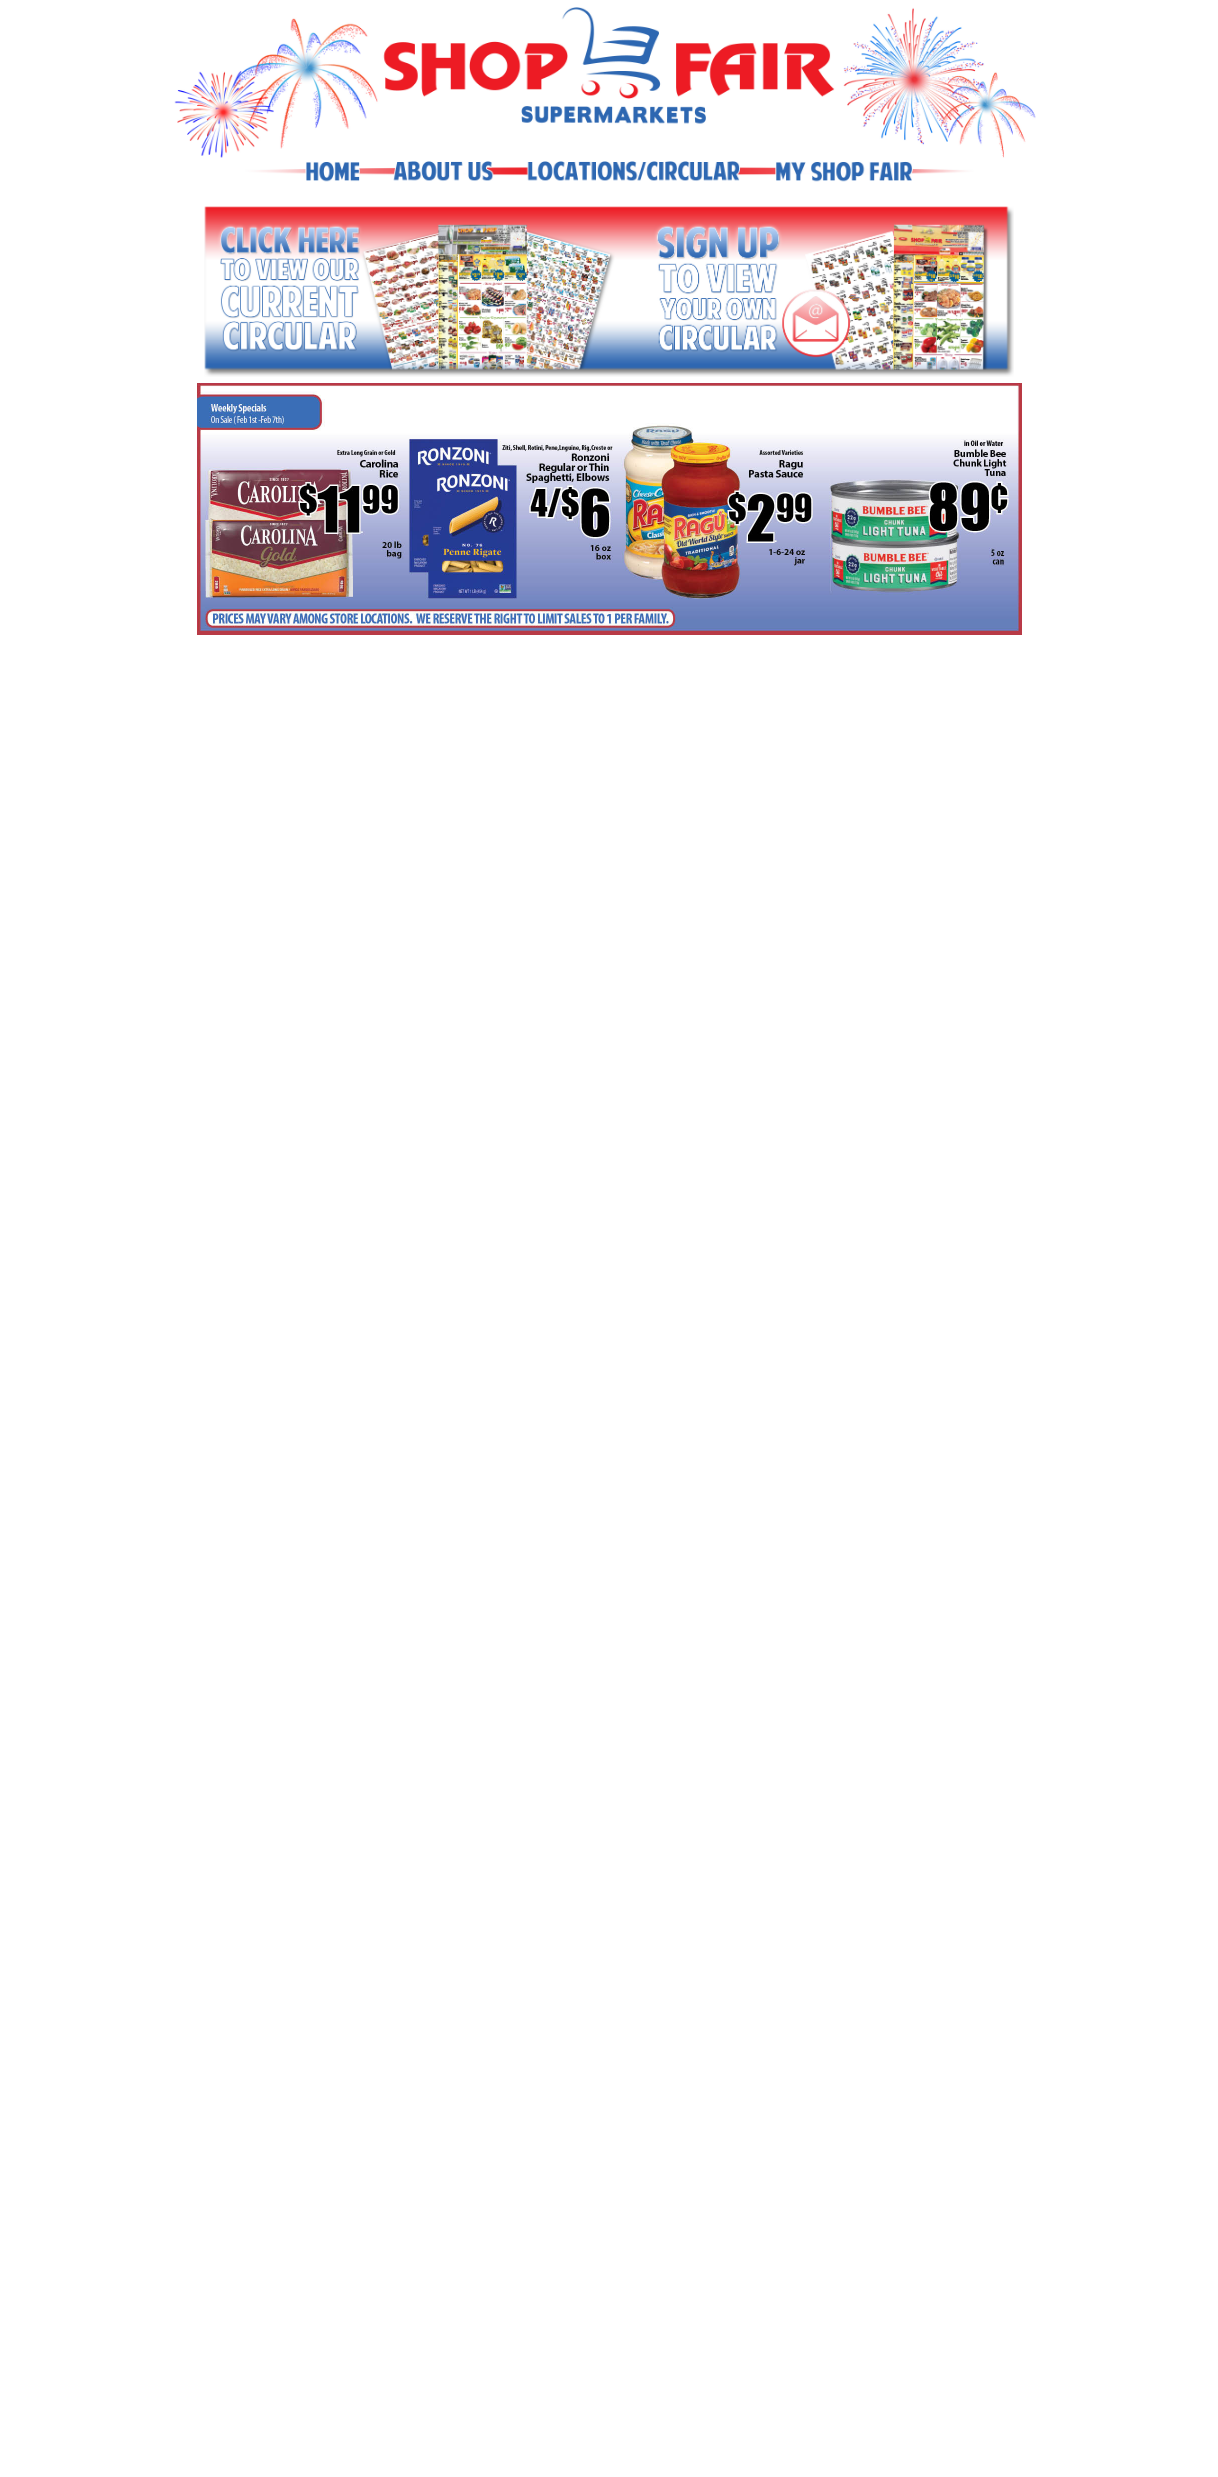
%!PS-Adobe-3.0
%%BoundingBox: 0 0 1218 2477
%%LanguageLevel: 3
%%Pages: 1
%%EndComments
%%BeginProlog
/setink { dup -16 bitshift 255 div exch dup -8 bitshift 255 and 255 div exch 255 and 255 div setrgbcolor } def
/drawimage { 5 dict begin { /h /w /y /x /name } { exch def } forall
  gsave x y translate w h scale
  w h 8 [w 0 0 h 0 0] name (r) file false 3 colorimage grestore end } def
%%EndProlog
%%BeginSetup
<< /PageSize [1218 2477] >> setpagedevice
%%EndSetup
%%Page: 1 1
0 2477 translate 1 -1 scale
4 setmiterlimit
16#FFFFFF setink
0 0 1218 2477 rectfill
(img1.raw) 174 7 862 175 drawimage
(img2.raw) 204 206 810 171 drawimage
(img3.raw) 197 383 825 252 drawimage
showpage
%%EOF
